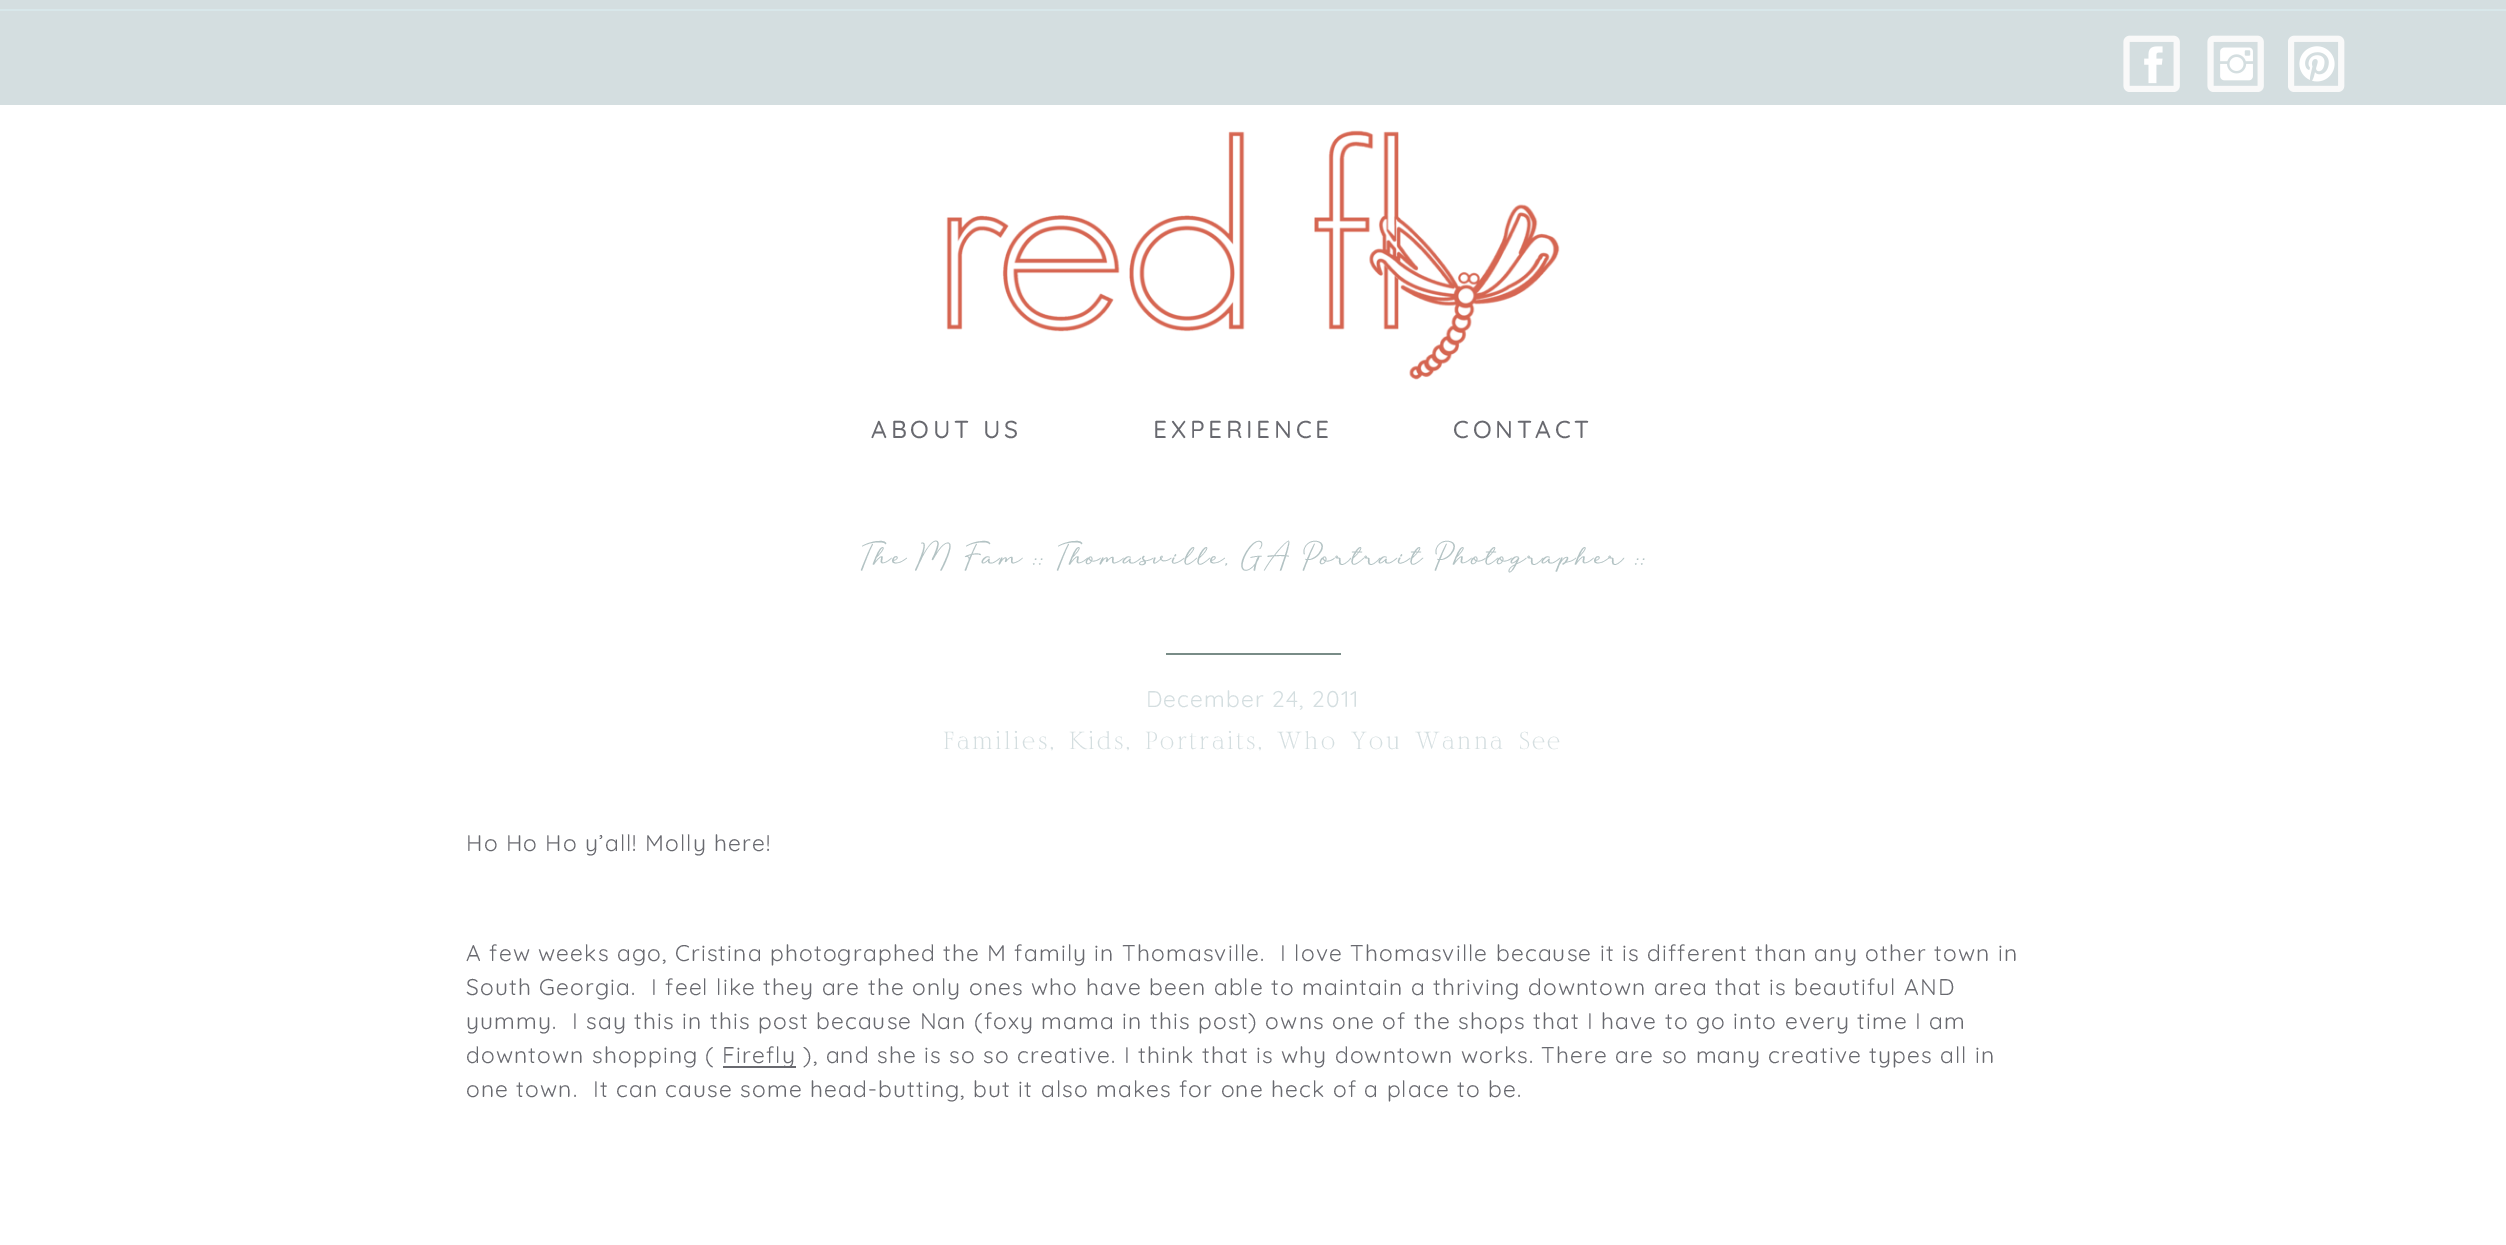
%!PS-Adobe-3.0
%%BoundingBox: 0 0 2506 1245
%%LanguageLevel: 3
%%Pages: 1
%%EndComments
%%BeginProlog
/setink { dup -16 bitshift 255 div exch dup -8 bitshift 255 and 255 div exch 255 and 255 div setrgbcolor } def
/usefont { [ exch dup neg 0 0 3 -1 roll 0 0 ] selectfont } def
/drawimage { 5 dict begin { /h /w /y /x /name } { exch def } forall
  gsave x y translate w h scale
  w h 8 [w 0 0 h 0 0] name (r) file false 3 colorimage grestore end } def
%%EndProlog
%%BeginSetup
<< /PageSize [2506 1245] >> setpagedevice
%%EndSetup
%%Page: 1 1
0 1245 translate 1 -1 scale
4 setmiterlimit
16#FFFFFF setink
0 0 2506 1245 rectfill
16#D4DEE0 setink
0 0 2506 105 rectfill
16#D8E7EA setink
0 9 2506 2 rectfill
(img1.raw) 2123 35 57 57 drawimage
(img1.raw) 2207 35 57 57 drawimage
(img2.raw) 2288 35 57 57 drawimage
(img3.raw) 2144 46 19 38 drawimage
(img4.raw) 2220 47 33 34 drawimage
(img5.raw) 2299 46 36 36 drawimage
(img6.raw) 946 130 614 250 drawimage
/Quicksand-Medium 24.5 usefont
16#68696F setink
871 438 moveto 3.75 0 (ABOUT US) ashow
1153 438 moveto 3.75 0 (EXPERIENCE) ashow
1453 438 moveto 3.75 0 (CONTACT) ashow
/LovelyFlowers-Regular 35 usefont
16#B3C3C4 setink
858 563 moveto 1.75 0 (The M Fam :: Thomasville, GA Portrait Photographer ::) ashow
16#798C87 setink
1166 653 175 2 rectfill
/Quicksand-Regular 22.75 usefont
16#D4DEE0 setink
1146 707 moveto 1.14 0 (December 24, 2011) ashow
/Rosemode-Regular 24.5 usefont
943 749 moveto 2.45 0 (Families, Kids, Portraits, Who You Wanna See) ashow
/Quicksand-Regular 22.75 usefont
16#68696F setink
466 851 moveto 1.14 0 (Ho Ho Ho y’all! Molly here!) ashow
466 961 moveto 1.14 0 (A few weeks ago, Cristina photographed the M family in Thomasville.  I love Thomasville because it is different than any other town in) ashow
466 995 moveto 1.14 0 (South Georgia.  I feel like they are the only ones who have been able to maintain a thriving downtown area that is beautiful AND) ashow
466 1029 moveto 1.14 0 (yummy.  I say this in this post because Nan \(foxy mama in this post\) owns one of the shops that I have to go into every time I am) ashow
466 1063 moveto 1.14 0 (downtown shopping \() ashow
723 1066 73 2 rectfill
722 1063 moveto 1.14 0 (Firefly \), and she is so so creative. I think that is why downtown works. There are so many creative types all in) ashow
466 1097 moveto 1.14 0 (one town.  It can cause some head-butting, but it also makes for one heck of a place to be.) ashow
showpage
%%EOF
